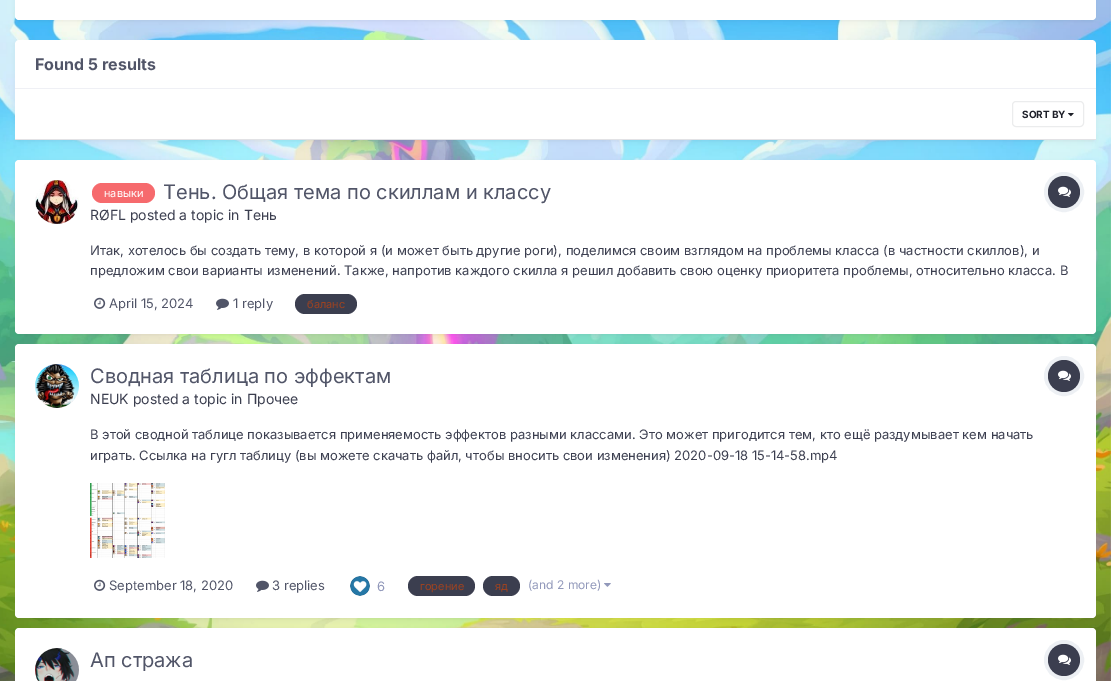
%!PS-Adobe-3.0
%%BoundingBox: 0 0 1111 681
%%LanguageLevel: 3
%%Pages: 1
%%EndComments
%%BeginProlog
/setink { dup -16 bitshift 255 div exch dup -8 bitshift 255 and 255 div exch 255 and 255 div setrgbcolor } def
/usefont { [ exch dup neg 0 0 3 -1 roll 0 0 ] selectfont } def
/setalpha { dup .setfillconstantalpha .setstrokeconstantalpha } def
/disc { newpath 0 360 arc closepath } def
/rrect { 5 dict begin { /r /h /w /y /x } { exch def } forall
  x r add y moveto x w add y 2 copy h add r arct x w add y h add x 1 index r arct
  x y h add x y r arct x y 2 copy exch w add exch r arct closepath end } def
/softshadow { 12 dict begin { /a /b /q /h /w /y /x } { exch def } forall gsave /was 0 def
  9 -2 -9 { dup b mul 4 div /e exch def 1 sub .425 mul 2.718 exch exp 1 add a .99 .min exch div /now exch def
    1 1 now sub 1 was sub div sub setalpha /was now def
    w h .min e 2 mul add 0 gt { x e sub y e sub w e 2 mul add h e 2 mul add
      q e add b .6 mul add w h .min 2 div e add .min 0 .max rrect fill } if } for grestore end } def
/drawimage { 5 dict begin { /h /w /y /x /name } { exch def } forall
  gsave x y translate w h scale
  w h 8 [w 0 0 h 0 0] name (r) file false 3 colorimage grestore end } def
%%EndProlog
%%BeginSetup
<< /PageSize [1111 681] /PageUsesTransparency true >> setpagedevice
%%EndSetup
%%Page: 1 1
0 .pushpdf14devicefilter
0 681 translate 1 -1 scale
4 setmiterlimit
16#FFFFFF setink
0 0 1111 681 rectfill
(img1.raw) 0 0 1111 681 drawimage
16#3B3E4F setink
16 -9 1079 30 3 2 0.1 softshadow
16#FFFFFF setink
15 -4 1081 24 4 rrect fill
16#3B3E4F setink
16 43 1079 98 3 2 0.1 softshadow
16#FFFFFF setink
19 40 moveto 1092 40 lineto 1094 40 1096 42 1096 44 curveto 1096 89 lineto 15 89 lineto 15 44 lineto 15 42 17 40 19 40 curveto closepath fill
16#EFF0F5 setink
15 88 1081 1 rectfill
/Inter-Bold 16 usefont
16#515568 setink
35 70 moveto (Found 5 results) show
16#FFFFFF setink
15 89 1081 50 rectfill
16#E2E2E5 setink
15 139 1081 1 rectfill
(img2.raw) 1068 113 6 4 drawimage
16#EBECED setink
1012.5 101.5 71 25 3.5 rrect stroke
/Inter-Bold 10 usefont
16#1E2029 setink
1022 118 moveto (SORT BY) show
16#3B3E4F setink
16 163 1079 172 3 2 0.1 softshadow
16#FFFFFF setink
15 160 1081 174 4 rrect fill
(img3.raw) 35 180 44 44 drawimage
16#F66A6D setink
92 183 63 20 10 rrect fill
/Inter-Regular 11 usefont
16#FFFFFF setink
104 197 moveto (навыки) show
/Inter-Regular 20 usefont
16#515568 setink
163 199 moveto (Тень. Общая тема по скиллам и классу) show
/Inter-Regular 14 usefont
16#3B3E4F setink
90 220 moveto (RØFL posted a topic in Тень) show
16#EDF0F4 setink
4 setlinewidth
1064 192 18 disc stroke
16#3B3E4F setink
1064 192 16 disc fill
(img4.raw) 1058 186 13 11 drawimage
/Inter-Regular 13 usefont
90 255 moveto (Итак, хотелось бы создать тему, в которой я \(и может быть другие роги\), поделимся своим взглядом на проблемы класса \(в частности скиллов\), и) show
90 275 moveto (предложим свои варианты изменений. Также, напротив каждого скилла я решил добавить свою оценку приоритета проблемы, относительно класса. В) show
(img5.raw) 94 297 12 12 drawimage
16#515568 setink
109 308 moveto (April 15, 2024) show
(img6.raw) 216 298 13 12 drawimage
233 308 moveto (1 reply) show
16#3B3E4F setink
295 294 62 20 10 rrect fill
/Inter-Regular 11 usefont
16#9C4221 setink
307 308 moveto (баланс) show
16#3B3E4F setink
16 347 1079 272 3 2 0.1 softshadow
16#FFFFFF setink
15 344 1081 274 4 rrect fill
(img7.raw) 35 364 44 44 drawimage
/Inter-Regular 20 usefont
16#515568 setink
90 383 moveto (Сводная таблица по эффектам) show
/Inter-Regular 14 usefont
16#3B3E4F setink
90 404 moveto (NEUK posted a topic in Прочее) show
16#EDF0F4 setink
1064 376 18 disc stroke
16#3B3E4F setink
1064 376 16 disc fill
(img4.raw) 1058 370 13 11 drawimage
/Inter-Regular 13 usefont
90 439 moveto (В этой сводной таблице показывается применяемость эффектов разными классами. Это может пригодится тем, кто ещё раздумывает кем начать) show
90 460 moveto (играть. Ссылка на гугл таблицу \(вы можете скачать файл, чтобы вносить свои изменения\) 2020-09-18 15-14-58.mp4) show
(img8.raw) 90 483 75 75 drawimage
(img5.raw) 94 579 12 12 drawimage
16#515568 setink
109 590 moveto (September 18, 2020) show
(img6.raw) 256 580 13 12 drawimage
272 590 moveto (3 replies) show
(img9.raw) 350 576 20 20 drawimage
16#9198BA setink
377 591 moveto (6) show
16#3B3E4F setink
408 576 67 20 10 rrect fill
/Inter-Regular 11 usefont
16#9C4221 setink
420 590 moveto (горение) show
16#3B3E4F setink
483 576 37 20 10 rrect fill
16#9C4221 setink
495 590 moveto (яд) show
/Inter-Regular 12 usefont
16#9198BA setink
528 589 moveto (\(and 2 more\)) show
(img10.raw) 604 583 7 4 drawimage
16#3B3E4F setink
16 631 1079 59 3 2 0.1 softshadow
16#FFFFFF setink
15 628 1081 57 4 rrect fill
(img11.raw) 35 648 44 33 drawimage
/Inter-Regular 20 usefont
16#515568 setink
90 667 moveto (Ап стража) show
16#EDF0F4 setink
1064 660 18 disc stroke
16#3B3E4F setink
1064 660 16 disc fill
(img4.raw) 1058 654 13 11 drawimage
.poppdf14devicefilter showpage
%%EOF
